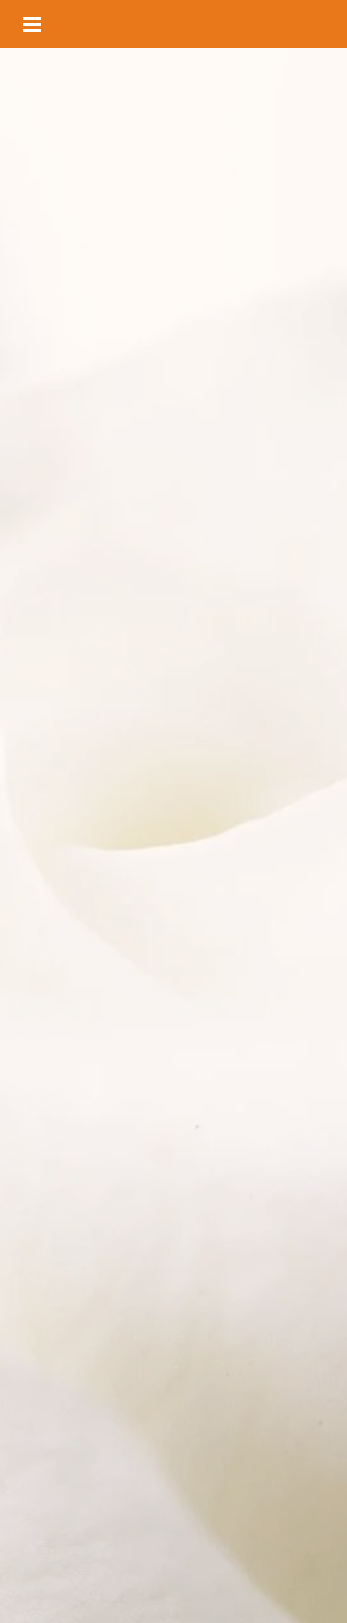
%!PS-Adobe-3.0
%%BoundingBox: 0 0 347 1623
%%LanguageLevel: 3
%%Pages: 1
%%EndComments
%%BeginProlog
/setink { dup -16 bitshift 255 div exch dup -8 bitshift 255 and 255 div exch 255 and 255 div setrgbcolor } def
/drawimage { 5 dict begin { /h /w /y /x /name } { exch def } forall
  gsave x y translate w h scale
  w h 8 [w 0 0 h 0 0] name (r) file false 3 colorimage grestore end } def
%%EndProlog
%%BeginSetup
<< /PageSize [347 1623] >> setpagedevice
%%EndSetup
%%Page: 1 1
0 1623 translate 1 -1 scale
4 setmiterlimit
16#FFFFFF setink
0 0 347 1623 rectfill
[
    [0 0 347 48 16#E9781B]
    [23 17 18 3 16#FFFFFF]
    [23 23 18 3 16#FFFFFF]
    [23 29 18 3 16#FFFFFF]
] { aload pop setink rectfill } forall
(img1.raw) 0 48 347 1575 drawimage
showpage
%%EOF
